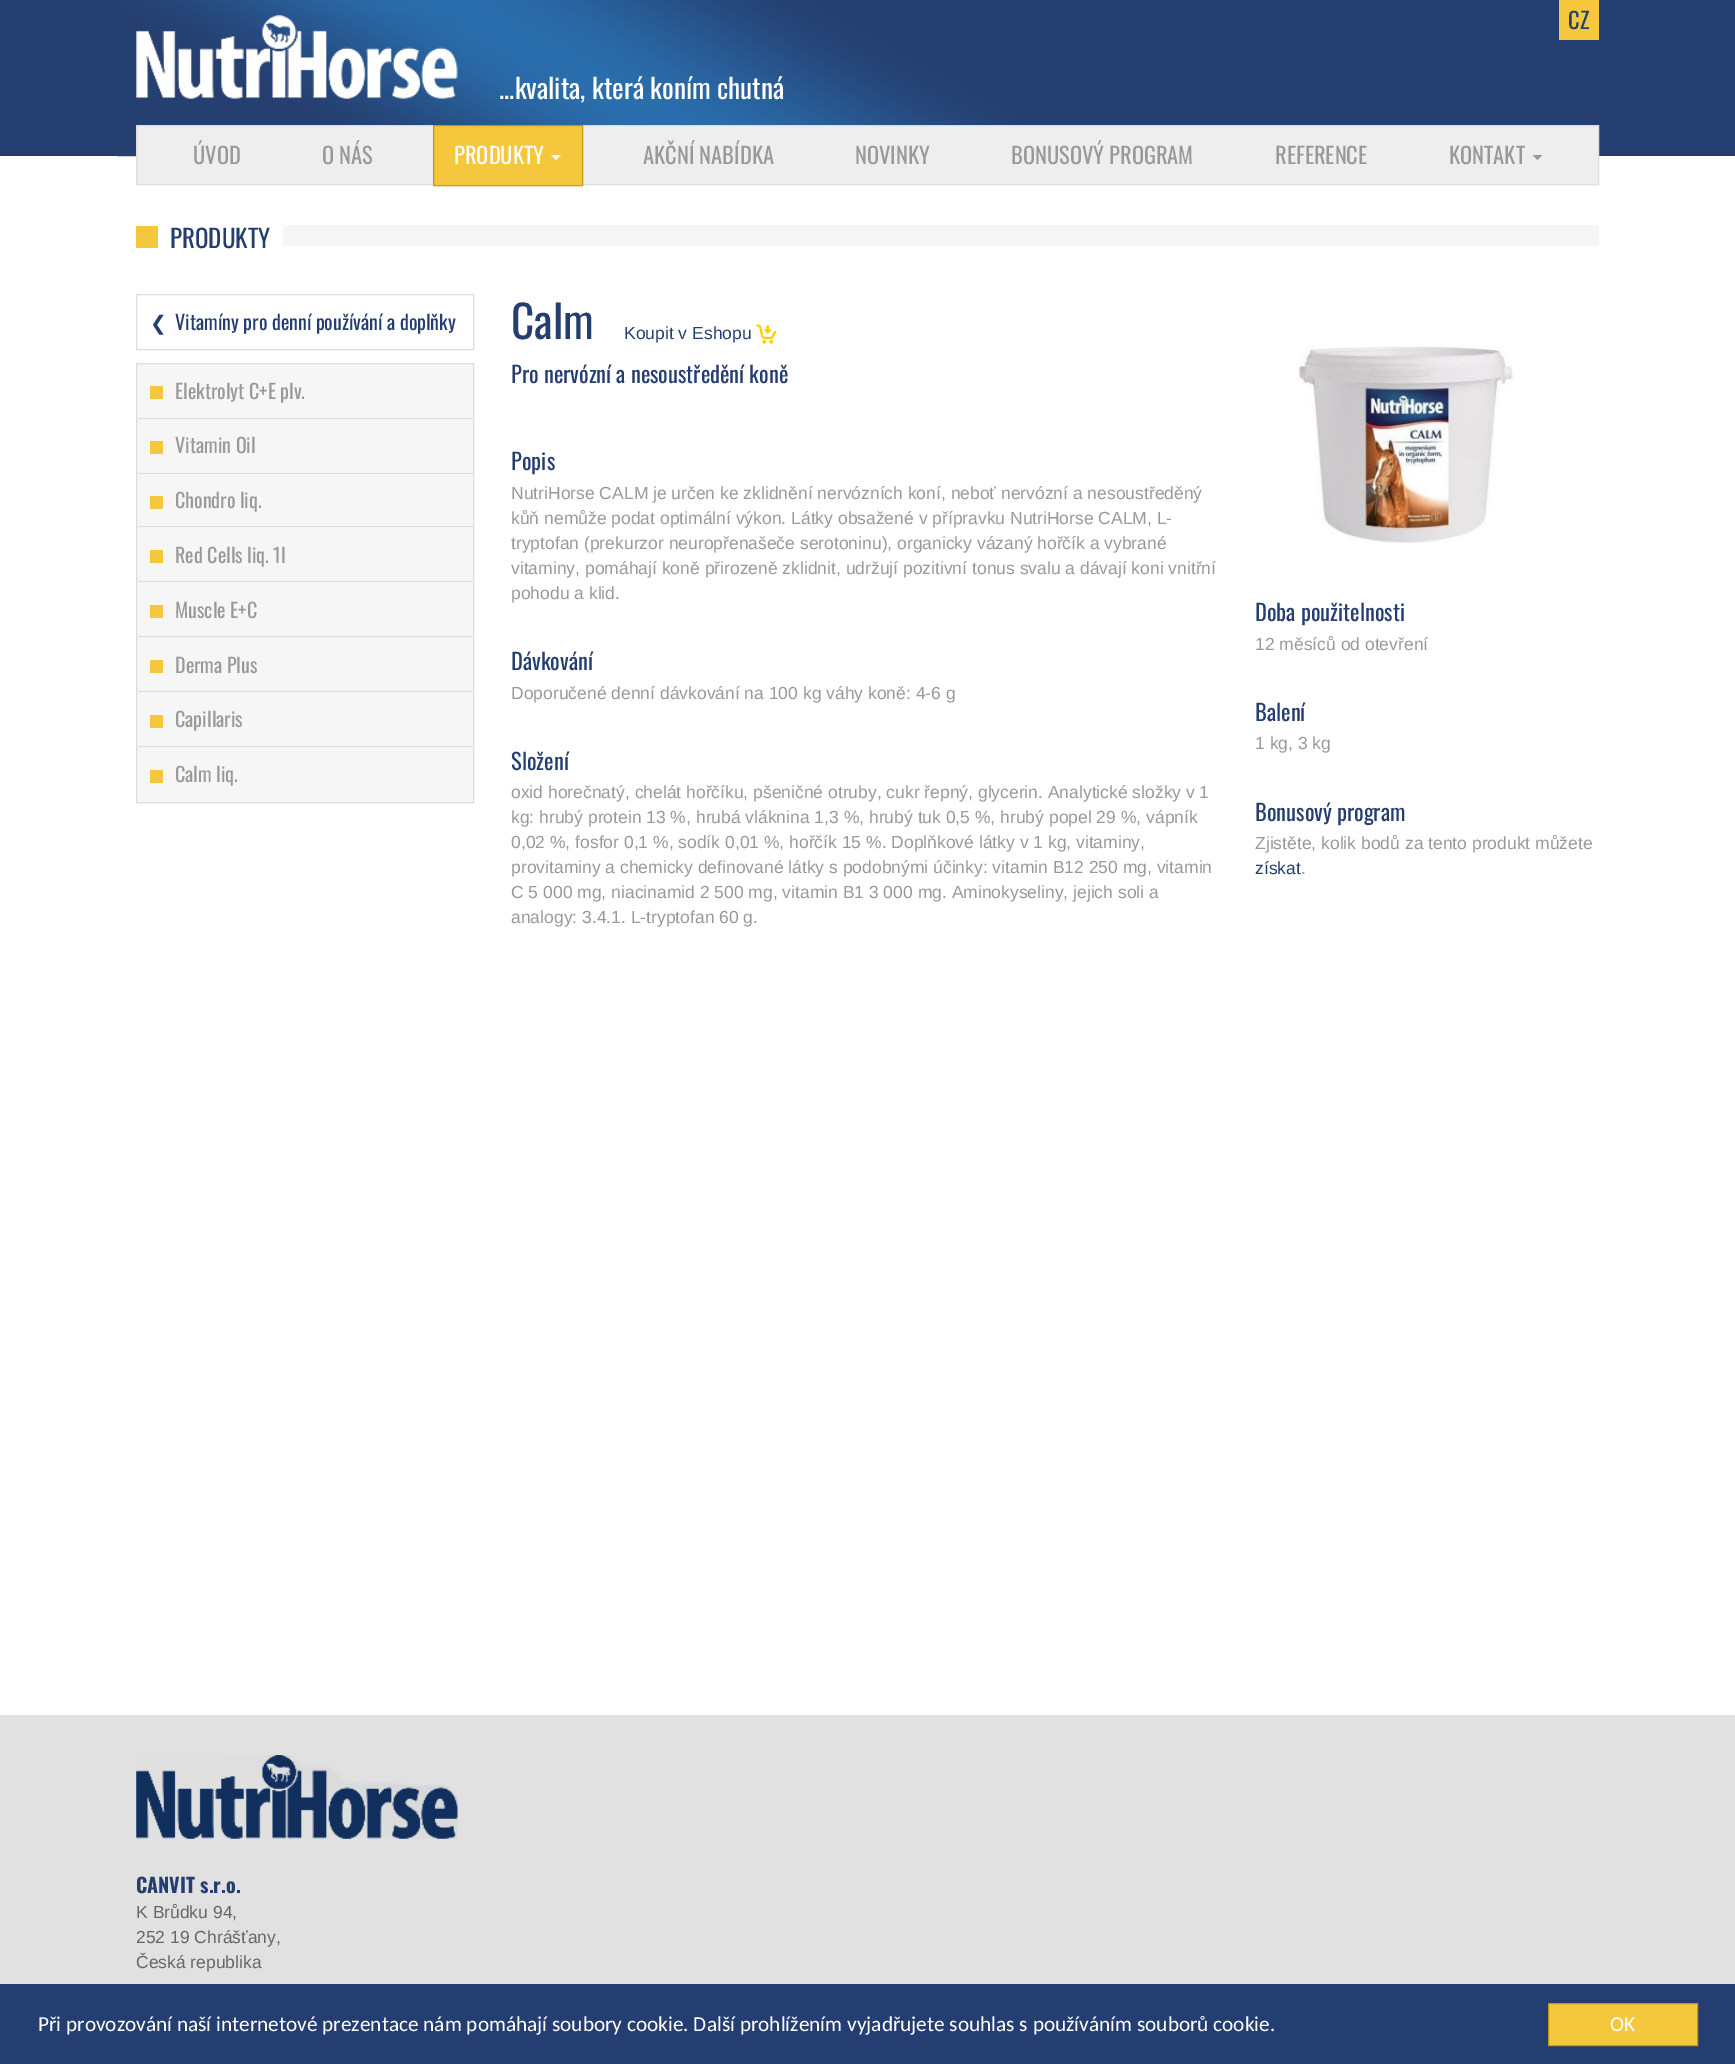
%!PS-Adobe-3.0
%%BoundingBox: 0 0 1735 2064
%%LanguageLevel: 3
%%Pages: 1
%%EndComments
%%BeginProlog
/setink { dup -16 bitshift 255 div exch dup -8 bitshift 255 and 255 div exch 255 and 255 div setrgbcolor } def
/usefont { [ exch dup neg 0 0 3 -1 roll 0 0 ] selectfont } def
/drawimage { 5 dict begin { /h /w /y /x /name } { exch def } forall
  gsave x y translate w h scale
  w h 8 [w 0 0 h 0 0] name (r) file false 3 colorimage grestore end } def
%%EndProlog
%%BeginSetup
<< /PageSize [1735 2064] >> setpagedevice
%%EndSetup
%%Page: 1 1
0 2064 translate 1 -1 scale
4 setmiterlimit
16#FFFFFF setink
0 0 1735 2064 rectfill
16#243E71 setink
0 0 1735 156 rectfill
(img1.raw) 117 0 1426 157 drawimage
(img2.raw) 136 15 322 84 drawimage
/Oswald-Regular 27.5 usefont
16#FFFFFF setink
499 99 moveto (...kvalita, která koním chutná) show
16#F4C73C setink
1559 0 40 40 rectfill
/Oswald-Regular 22.5 usefont
16#243E71 setink
1568 29 moveto (CZ) show
16#EEEEEE setink
136.5 125.5 moveto 1598.5 125.5 lineto 1598.5 184.5 lineto 136.5 184.5 lineto closepath gsave fill grestore
16#DDDDDD setink
stroke
16#999999 setink
193 164 moveto (ÚVOD) show
322 164 moveto (O NÁS) show
16#F4C73C setink
433.5 125.5 moveto 582.5 125.5 lineto 582.5 185.5 lineto 433.5 185.5 lineto closepath gsave fill grestore
16#C49812 setink
stroke
16#FFFFFF setink
454 164 moveto (PRODUKTY) show
551 155 moveto 561 155 lineto 556 160 lineto closepath fill
16#999999 setink
[
    [(AKČNÍ NABÍDKA) 643 164]
    [(NOVINKY) 855 164]
    [(BONUSOVÝ PROGRAM) 1011 164]
    [(REFERENCE) 1275 164]
    [(KONTAKT) 1449 164]
] { aload pop moveto show } forall
1532.5 155 moveto 1542.5 155 lineto 1537.5 160 lineto closepath fill
16#F4C73C setink
136 226 22 22 rectfill
/Oswald-Regular 25 usefont
16#243E71 setink
170 248 moveto (PRODUKTY) show
16#F6F6F6 setink
283 225 1316 21 rectfill
16#DDDDDD setink
136.5 294.5 337 55 rectstroke
/DejaVuSans-Regular 20 usefont
16#243E71 setink
150 330 moveto (❮) show
/Oswald-Regular 20 usefont
175 330 moveto (Vitamíny pro denní používání a doplňky) show
16#F6F6F6 setink
136.5 363.5 moveto 473.5 363.5 lineto 473.5 802.5 lineto 136.5 802.5 lineto closepath gsave fill grestore
16#DDDDDD setink
stroke
138 418 335 1 rectfill
16#F4C73C setink
150 386 13 13 rectfill
16#999999 setink
175 399 moveto (Elektrolyt C+E plv.) show
16#DDDDDD setink
138 473 335 1 rectfill
16#F4C73C setink
150 441 13 13 rectfill
16#999999 setink
175 453 moveto (Vitamin Oil) show
16#DDDDDD setink
138 526 335 1 rectfill
16#F4C73C setink
150 496 13 13 rectfill
16#999999 setink
175 508 moveto (Chondro liq.) show
16#DDDDDD setink
138 581 335 1 rectfill
16#F4C73C setink
150 550 13 13 rectfill
16#999999 setink
175 563 moveto (Red Cells liq. 1l) show
16#DDDDDD setink
138 636 335 1 rectfill
16#F4C73C setink
150 605 13 13 rectfill
16#999999 setink
175 618 moveto (Muscle E+C) show
16#DDDDDD setink
138 691 335 1 rectfill
16#F4C73C setink
150 660 13 13 rectfill
16#999999 setink
175 673 moveto (Derma Plus) show
16#DDDDDD setink
138 746 335 1 rectfill
16#F4C73C setink
150 715 13 13 rectfill
16#999999 setink
175 727 moveto (Capillaris) show
16#F4C73C setink
150 770 13 13 rectfill
16#999999 setink
175 782 moveto (Calm liq.) show
/Oswald-Regular 45 usefont
16#243E71 setink
511 339 moveto (Calm) show
/LiberationSans-Regular 17.5 usefont
624 339 moveto (Koupit v Eshopu) show
(img3.raw) 756 324 21 20 drawimage
/Oswald-Regular 22.5 usefont
511 383 moveto (Pro nervózní a nesoustředění koně) show
511 470 moveto (Popis) show
/LiberationSans-Regular 17.5 usefont
16#999999 setink
[
    [(NutriHorse CALM je určen ke zklidnění nervózních koní, neboť nervózní a nesoustředěný) 511 499]
    [(kůň nemůže podat optimální výkon. Látky obsažené v přípravku NutriHorse CALM, L-) 511 524]
    [(tryptofan \(prekurzor neuropřenašeče serotoninu\), organicky vázaný hořčík a vybrané) 511 549]
    [(vitaminy, pomáhají koně přirozeně zklidnit, udržují pozitivní tonus svalu a dávají koni vnitřní) 511 574]
    [(pohodu a klid.) 511 599]
] { aload pop moveto show } forall
/Oswald-Regular 22.5 usefont
16#243E71 setink
511 670 moveto (Dávkování) show
/LiberationSans-Regular 17.5 usefont
16#999999 setink
511 699 moveto (Doporučené denní dávkování na 100 kg váhy koně: 4-6 g) show
/Oswald-Regular 22.5 usefont
16#243E71 setink
511 770 moveto (Složení) show
/LiberationSans-Regular 17.5 usefont
16#999999 setink
[
    [(oxid horečnatý, chelát hořčíku, pšeničné otruby, cukr řepný, glycerin. Analytické složky v 1) 511 798]
    [(kg: hrubý protein 13 %, hrubá vláknina 1,3 %, hrubý tuk 0,5 %, hrubý popel 29 %, vápník) 511 823]
    [(0,02 %, fosfor 0,1 %, sodík 0,01 %, hořčík 15 %. Doplňkové látky v 1 kg, vitaminy,) 511 848]
    [(provitaminy a chemicky definované látky s podobnými účinky: vitamin B12 250 mg, vitamin) 511 873]
    [(C 5 000 mg, niacinamid 2 500 mg, vitamin B1 3 000 mg. Aminokyseliny, jejich soli a) 511 898]
    [(analogy: 3.4.1. L-tryptofan 60 g.) 511 923]
] { aload pop moveto show } forall
(img4.raw) 1298 346 216 197 drawimage
/Oswald-Regular 22.5 usefont
16#243E71 setink
1255 621 moveto (Doba použitelnosti) show
/LiberationSans-Regular 17.5 usefont
16#999999 setink
1255 650 moveto (12 měsíců od otevření) show
/Oswald-Regular 22.5 usefont
16#243E71 setink
1255 721 moveto (Balení) show
/LiberationSans-Regular 17.5 usefont
16#999999 setink
1255 749 moveto (1 kg, 3 kg) show
/Oswald-Regular 22.5 usefont
16#243E71 setink
1255 821 moveto (Bonusový program) show
/LiberationSans-Regular 17.5 usefont
16#999999 setink
1255 849 moveto (Zjistěte, kolik bodů za tento produkt můžete) show
16#243E71 setink
1255 874 moveto (získat) show
16#999999 setink
1301 874 moveto (.) show
16#E1E1E1 setink
0 1715 1735 269 rectfill
(img5.raw) 136 1755 322 84 drawimage
/Oswald-Bold 20 usefont
16#243E71 setink
136 1893 moveto (CANVIT s.r.o.) show
/LiberationSans-Regular 17.5 usefont
16#666666 setink
[
    [(K Brůdku 94,) 136 1918]
    [(252 19 Chrášťany,) 136 1943]
    [(Česká republika) 136 1968]
] { aload pop moveto show } forall
16#243E71 setink
0 1984 1735 80 rectfill
/Carlito-Regular 21.25 usefont
16#FFFFFF setink
38 2031 moveto (Při provozování naší internetové prezentace nám pomáhají soubory cookie. Další prohlížením vyjadřujete souhlas s používáním souborů cookie.) show
16#F4C73C setink
1548.5 2003.5 moveto 1697.5 2003.5 lineto 1697.5 2045.5 lineto 1548.5 2045.5 lineto closepath gsave fill grestore
16#C49812 setink
stroke
16#FFFFFF setink
1610 2031 moveto (OK) show
showpage
%%EOF
